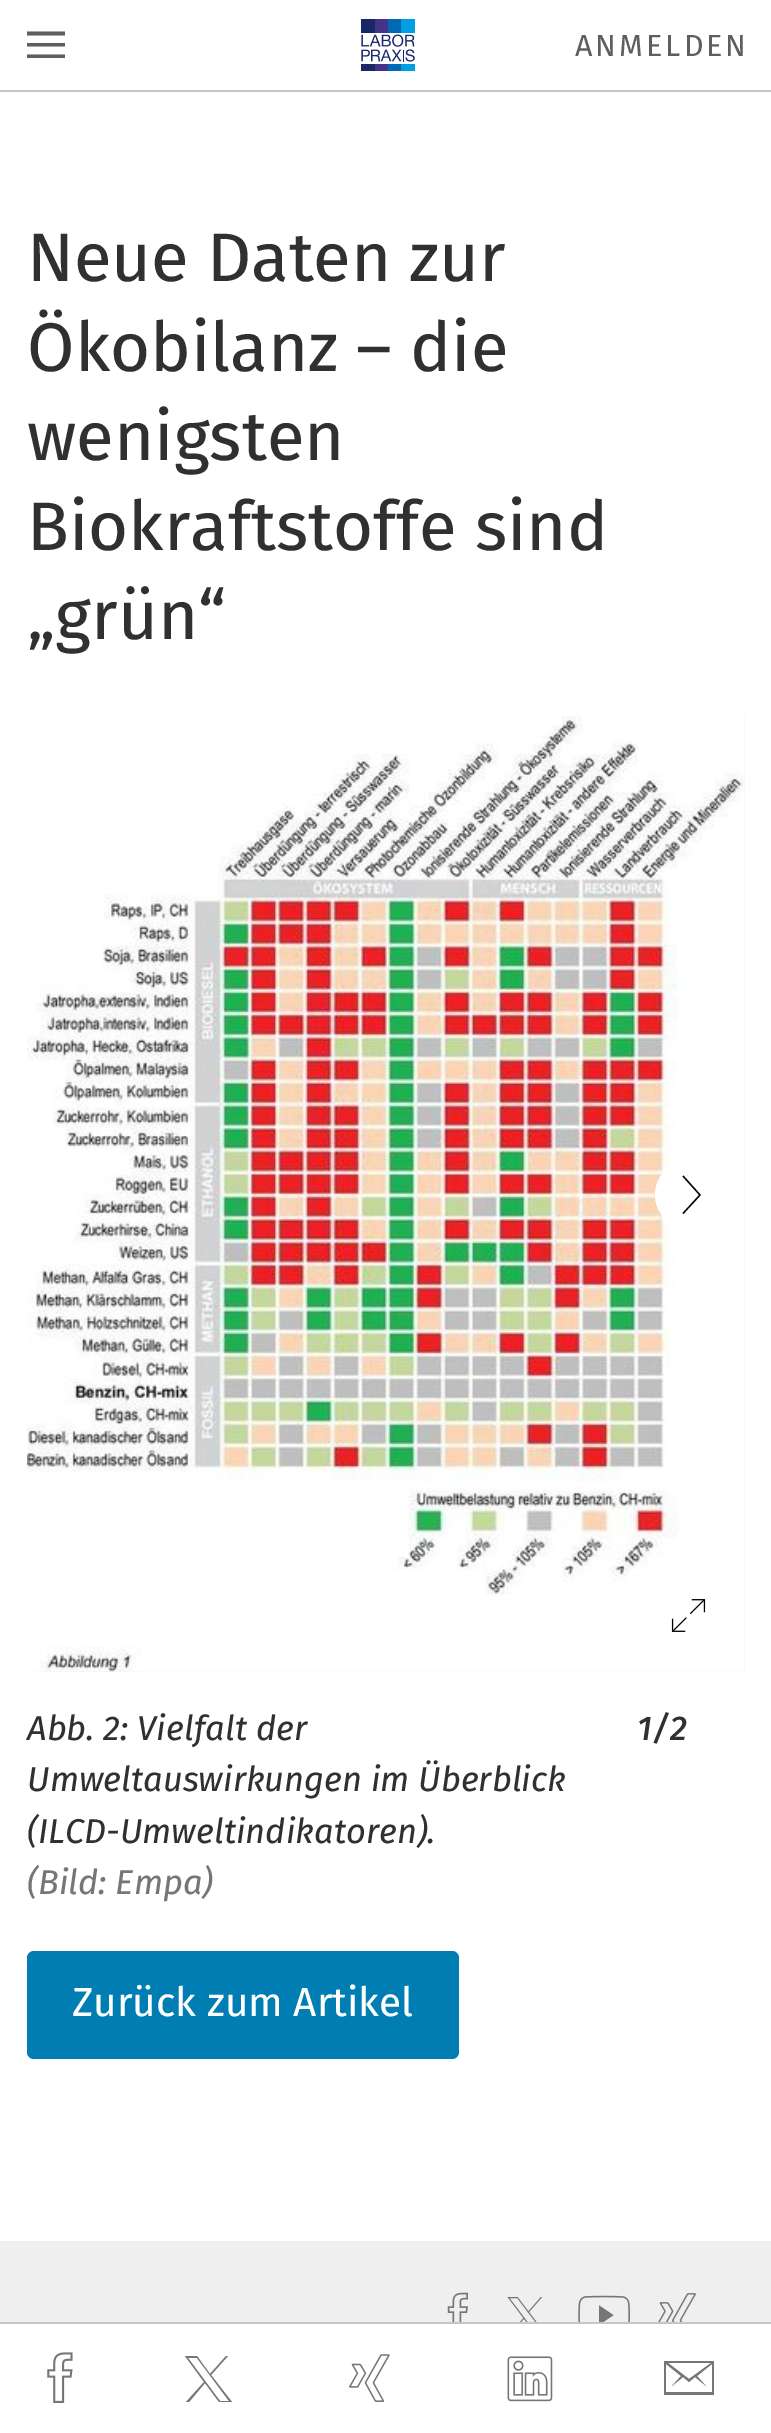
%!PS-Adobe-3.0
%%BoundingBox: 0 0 771 2433
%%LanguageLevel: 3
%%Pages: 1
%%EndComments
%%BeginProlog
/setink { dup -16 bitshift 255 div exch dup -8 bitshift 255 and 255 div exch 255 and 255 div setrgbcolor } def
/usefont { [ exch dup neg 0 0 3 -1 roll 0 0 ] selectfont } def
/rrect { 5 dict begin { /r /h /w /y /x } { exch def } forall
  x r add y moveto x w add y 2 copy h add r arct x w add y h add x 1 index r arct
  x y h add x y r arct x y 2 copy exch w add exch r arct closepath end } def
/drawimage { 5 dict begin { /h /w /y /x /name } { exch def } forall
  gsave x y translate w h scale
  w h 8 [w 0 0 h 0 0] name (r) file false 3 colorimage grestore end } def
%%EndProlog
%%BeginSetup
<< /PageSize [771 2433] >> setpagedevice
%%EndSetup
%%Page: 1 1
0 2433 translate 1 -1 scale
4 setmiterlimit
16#FFFFFF setink
0 0 771 2433 rectfill
16#C6C6C6 setink
0 90 771 2 rectfill
16#5E5E5E setink
27 46.5 moveto 27 43 lineto 65 43 lineto 65 46.5 lineto closepath 27 35.5 moveto 27 31.5 lineto 65 31.5 lineto 65 35.5 lineto closepath 27 58 moveto 27 54.5 lineto 65 54.5 lineto 65 58 lineto closepath fill
(img1.raw) 361 19 54 52 drawimage
/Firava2-Regular 30.5 usefont
575 56 moveto 3 0 (ANMELDEN) ashow
/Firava-Regular 68.75 usefont
16#303030 setink
[
    [(Neue Daten zur) 27 281]
    [(Ökobilanz – die) 27 371]
    [(wenigsten) 27 460]
    [(Biokraftstoffe sind) 27 550]
    [(„grün“) 27 639]
] { aload pop moveto show } forall
16#EFEFEF setink
27 716 718 956 rectfill
(img2.raw) 27 716 718 956 drawimage
16#FFFFFF setink
688 1161 moveto 670 1161 655 1176 655 1195 curveto 655 1213 670 1228 688 1228 curveto 707 1228 722 1213 722 1195 curveto 722 1176 707 1161 688 1161 curveto fill
16#000000 setink
1.3 setlinewidth
683 1213.5 moveto 700 1195 lineto 683 1176 lineto stroke
(img3.raw) 671 1599 35 33 drawimage
/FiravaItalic-Italic 34.4 usefont
16#303030 setink
[
    [(Abb. 2: Vielfalt der) 27 1740]
    [(Umweltauswirkungen im Überblick) 27 1791]
    [(\(ILCD-Umweltindikatoren\).) 27 1843]
] { aload pop moveto show } forall
16#767676 setink
27 1894 moveto (\(Bild: Empa\)) show
/FiravaItalic-MediumItalic 34.4 usefont
16#303030 setink
637 1740 moveto (1/2) show
16#007EB4 setink
27 1951 432 108 7 rrect fill
/Firava-Regular 40.5 usefont
16#FFFFFF setink
72 2016 moveto (Zurück zum Artikel) show
16#C6C6C6 setink
0 2322 771 2 rectfill
(img4.raw) 47 2352 26 51 drawimage
16#767676 setink
186 2402 moveto 189 2402 lineto 205 2383 lineto 219 2402 lineto 232 2402 lineto 211 2375 lineto 228 2356 lineto 226 2356 lineto 210 2374 lineto 197 2356 lineto 185 2356 lineto 204 2382 lineto closepath 188 2358 moveto 197 2358 lineto 229 2401 lineto 220 2401 lineto closepath fill
(img5.raw) 349 2354 41 48 drawimage
(img6.raw) 507 2356 46 46 drawimage
664 2361 moveto 714 2361 lineto 714 2395 lineto 664 2395 lineto closepath 689 2379 moveto 711 2363 lineto 668 2363 lineto closepath 666 2392 moveto 712 2392 lineto 712 2364 lineto 697 2376 lineto 706 2386 lineto 695 2377 lineto 689 2382 lineto 683 2377 lineto 672 2386 lineto 681 2376 lineto 666 2364 lineto closepath fill
16#EFEFEF setink
0 2241 771 81 rectfill
(img7.raw) 447 2292 21 30 drawimage
(img8.raw) 507 2297 36 25 drawimage
(img9.raw) 578 2295 52 27 drawimage
(img10.raw) 658 2293 38 29 drawimage
showpage
%%EOF
